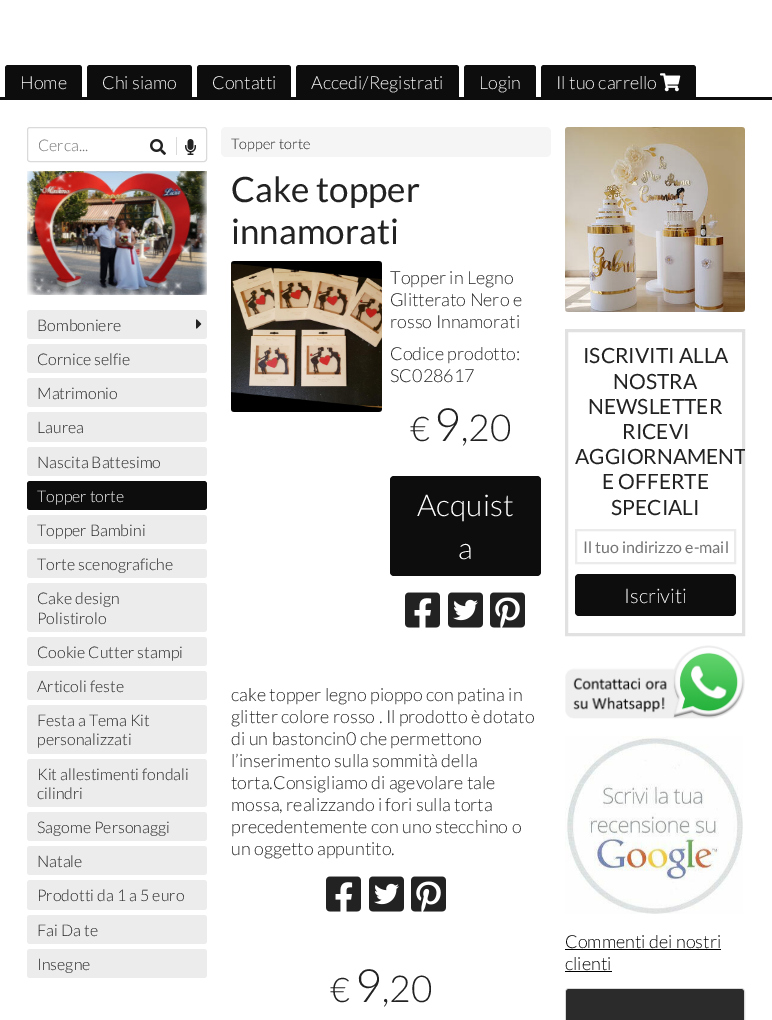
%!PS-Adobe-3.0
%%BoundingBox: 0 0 772 1020
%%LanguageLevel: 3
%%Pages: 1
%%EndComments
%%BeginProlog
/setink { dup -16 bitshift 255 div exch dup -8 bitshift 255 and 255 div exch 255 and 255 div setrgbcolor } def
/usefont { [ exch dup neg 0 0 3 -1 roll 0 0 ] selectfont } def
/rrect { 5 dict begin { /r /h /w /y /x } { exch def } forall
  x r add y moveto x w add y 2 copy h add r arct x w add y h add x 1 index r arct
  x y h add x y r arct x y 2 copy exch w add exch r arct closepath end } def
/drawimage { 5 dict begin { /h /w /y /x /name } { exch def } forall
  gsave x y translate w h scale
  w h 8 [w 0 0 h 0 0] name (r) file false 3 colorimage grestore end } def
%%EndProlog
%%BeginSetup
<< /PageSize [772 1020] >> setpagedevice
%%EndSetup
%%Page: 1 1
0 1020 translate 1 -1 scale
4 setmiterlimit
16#FFFFFF setink
0 0 772 1020 rectfill
16#0E0D0D setink
0 97 772 3 rectfill
8 65 moveto 79 65 lineto 80.5 65 82 66.5 82 68 curveto 82 100 lineto 5 100 lineto 5 68 lineto 5 66.5 6.5 65 8 65 curveto closepath fill
/Lato-Light 18 usefont
16#FFFFFF setink
20 89 moveto (Home) show
16#0E0D0D setink
90 65 moveto 189 65 lineto 190.5 65 192 66.5 192 68 curveto 192 100 lineto 87 100 lineto 87 68 lineto 87 66.5 88.5 65 90 65 curveto closepath fill
16#FFFFFF setink
102 89 moveto (Chi siamo) show
16#0E0D0D setink
200 65 moveto 288 65 lineto 289.5 65 291 66.5 291 68 curveto 291 100 lineto 197 100 lineto 197 68 lineto 197 66.5 198.5 65 200 65 curveto closepath fill
16#FFFFFF setink
212 89 moveto (Contatti) show
16#0E0D0D setink
299 65 moveto 456 65 lineto 457.5 65 459 66.5 459 68 curveto 459 100 lineto 296 100 lineto 296 68 lineto 296 66.5 297.5 65 299 65 curveto closepath fill
16#FFFFFF setink
311 89 moveto (Accedi/Registrati) show
16#0E0D0D setink
467 65 moveto 533 65 lineto 534.5 65 536 66.5 536 68 curveto 536 100 lineto 464 100 lineto 464 68 lineto 464 66.5 465.5 65 467 65 curveto closepath fill
16#FFFFFF setink
479 89 moveto (Login) show
16#0E0D0D setink
544 65 moveto 693 65 lineto 694.5 65 696 66.5 696 68 curveto 696 100 lineto 541 100 lineto 541 68 lineto 541 66.5 542.5 65 544 65 curveto closepath fill
16#FFFFFF setink
556 89 moveto (Il tuo carrello) show
(img1.raw) 660 73 21 19 drawimage
16#DADADA setink
27.5 127.5 179 34 2.5 rrect stroke
/Lato-Light 16 usefont
16#757575 setink
38 151 moveto (Cerca...) show
(img2.raw) 150 139 16 16 drawimage
16#DADADA setink
176 137 1 18 rectfill
(img3.raw) 185 139 11 16 drawimage
(img4.raw) 27 171 180 124 drawimage
16#ECECEC setink
27 310 180 29 3 rrect fill
16#222222 setink
37 331 moveto (Bomboniere) show
(img5.raw) 196 319 6 10 drawimage
16#ECECEC setink
27 344 180 29 3 rrect fill
16#222222 setink
37 365 moveto (Cornice selfie) show
16#ECECEC setink
27 378 180 29 3 rrect fill
16#222222 setink
37 399 moveto (Matrimonio) show
16#ECECEC setink
27 412 180 30 3 rrect fill
16#222222 setink
37 433 moveto (Laurea) show
16#ECECEC setink
27 447 180 29 3 rrect fill
16#222222 setink
37 468 moveto (Nascita Battesimo) show
16#0E0D0D setink
27 481 180 29 3 rrect fill
16#FFFFFF setink
37 502 moveto (Topper torte) show
16#ECECEC setink
27 515 180 29 3 rrect fill
16#222222 setink
37 536 moveto (Topper Bambini) show
16#ECECEC setink
27 549 180 29 3 rrect fill
16#222222 setink
37 570 moveto (Torte scenografiche) show
16#ECECEC setink
27 583 180 49 3 rrect fill
16#222222 setink
37 604 moveto (Cake design) show
37 624 moveto (Polistirolo) show
16#ECECEC setink
27 637 180 29 3 rrect fill
16#222222 setink
37 658 moveto (Cookie Cutter stampi) show
16#ECECEC setink
27 671 180 29 3 rrect fill
16#222222 setink
37 692 moveto (Articoli feste) show
16#ECECEC setink
27 705 180 49 3 rrect fill
16#222222 setink
37 726 moveto (Festa a Tema Kit) show
37 745 moveto (personalizzati) show
16#ECECEC setink
27 759 180 48 3 rrect fill
16#222222 setink
37 780 moveto (Kit allestimenti fondali) show
37 799 moveto (cilindri) show
16#ECECEC setink
27 812 180 29 3 rrect fill
16#222222 setink
37 833 moveto (Sagome Personaggi) show
16#ECECEC setink
27 846 180 29 3 rrect fill
16#222222 setink
37 867 moveto (Natale) show
16#ECECEC setink
27 880 180 30 3 rrect fill
16#222222 setink
37 901 moveto (Prodotti da 1 a 5 euro) show
16#ECECEC setink
27 915 180 29 3 rrect fill
16#222222 setink
37 936 moveto (Fai Da te) show
16#ECECEC setink
27 949 180 29 3 rrect fill
16#222222 setink
37 970 moveto (Insegne) show
16#F5F5F5 setink
221 127 330 30 5 rrect fill
/Lato-Light 14.5 usefont
16#222222 setink
231 149 moveto (Topper torte) show
/Lato-Regular 35 usefont
231 202 moveto (Cake topper) show
231 244 moveto (innamorati) show
(img6.raw) 231 261 151 151 drawimage
/Lato-Light 18 usefont
[
    [(Topper in Legno) 390 284]
    [(Glitterato Nero e) 390 306]
    [(rosso Innamorati) 390 328]
    [(Codice prodotto:) 390 360]
    [(SC028617) 390 382]
] { aload pop moveto show } forall
/Lato-Light 34 usefont
410 441 moveto (€) show
/Lato-Light 46 usefont
434 441 moveto (9) show
/Lato-Light 37 usefont
461 441 moveto (,20) show
16#0E0D0D setink
390 476 151 100 4 rrect fill
/Lato-Light 30 usefont
16#FFFFFF setink
417 516 moveto (Acquist) show
458 559 moveto (a) show
(img7.raw) 405 592 35 36 drawimage
(img8.raw) 448 592 35 36 drawimage
(img9.raw) 490 592 35 36 drawimage
/Lato-Light 18 usefont
16#222222 setink
[
    [(cake topper legno pioppo con patina in) 231 701]
    [(glitter colore rosso . Il prodotto è dotato) 231 723]
    [(di un bastoncin0 che permettono) 231 745]
    [(l’inserimento sulla sommità della) 231 767]
    [(torta.Consigliamo di agevolare tale) 231 789]
    [(mossa, realizzando i fori sulla torta) 231 811]
    [(precedentemente con uno stecchino o) 231 833]
    [(un oggetto appuntito.) 231 855]
] { aload pop moveto show } forall
(img7.raw) 326 876 35 36 drawimage
(img8.raw) 369 876 35 36 drawimage
(img9.raw) 411 876 35 36 drawimage
/Lato-Light 34 usefont
330 1002 moveto (€) show
/Lato-Light 46 usefont
355 1002 moveto (9) show
/Lato-Light 37 usefont
382 1002 moveto (,20) show
(img10.raw) 565 127 180 185 drawimage
16#E1E1E1 setink
3 setlinewidth
566.5 330.5 177 304 rectstroke
/Lato-Regular 21 usefont
16#222222 setink
[
    [(ISCRIVITI ALLA) 583 363]
    [(NOSTRA) 613 389]
    [(NEWSLETTER) 588 414]
    [(RICEVI) 622 439]
] { aload pop moveto show } forall
gsave
565 127 180 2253 rectclip
575 464 moveto (AGGIORNAMENT) show
grestore
602 489 moveto (E OFFERTE) show
611 515 moveto (SPECIALI) show
16#EBEBEB setink
2 setlinewidth
576 530 159 33 rectstroke
/Lato-Regular 16 usefont
16#757575 setink
583 553 moveto (Il tuo indirizzo e-mail) show
16#0E0D0D setink
575 574 161 42 4 rrect fill
/Lato-Light 20 usefont
16#FFFFFF setink
624 603 moveto (Iscriviti) show
(img11.raw) 565 645 180 74 drawimage
(img12.raw) 565 736 178 178 drawimage
/Lato-Light 18 usefont
16#000000 setink
565 948 moveto (Commenti dei nostri) show
565 949 156 1 rectfill
565 970 moveto (clienti) show
565 971 47 1 rectfill
16#D9D9D9 setink
1 setlinewidth
565.5 988.5 179 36 3.5 rrect stroke
16#2B2B2B setink
569 989 moveto 741 989 lineto 742.5 989 744 990.5 744 992 curveto 744 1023 lineto 566 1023 lineto 566 992 lineto 566 990.5 567.5 989 569 989 curveto closepath fill
showpage
%%EOF
